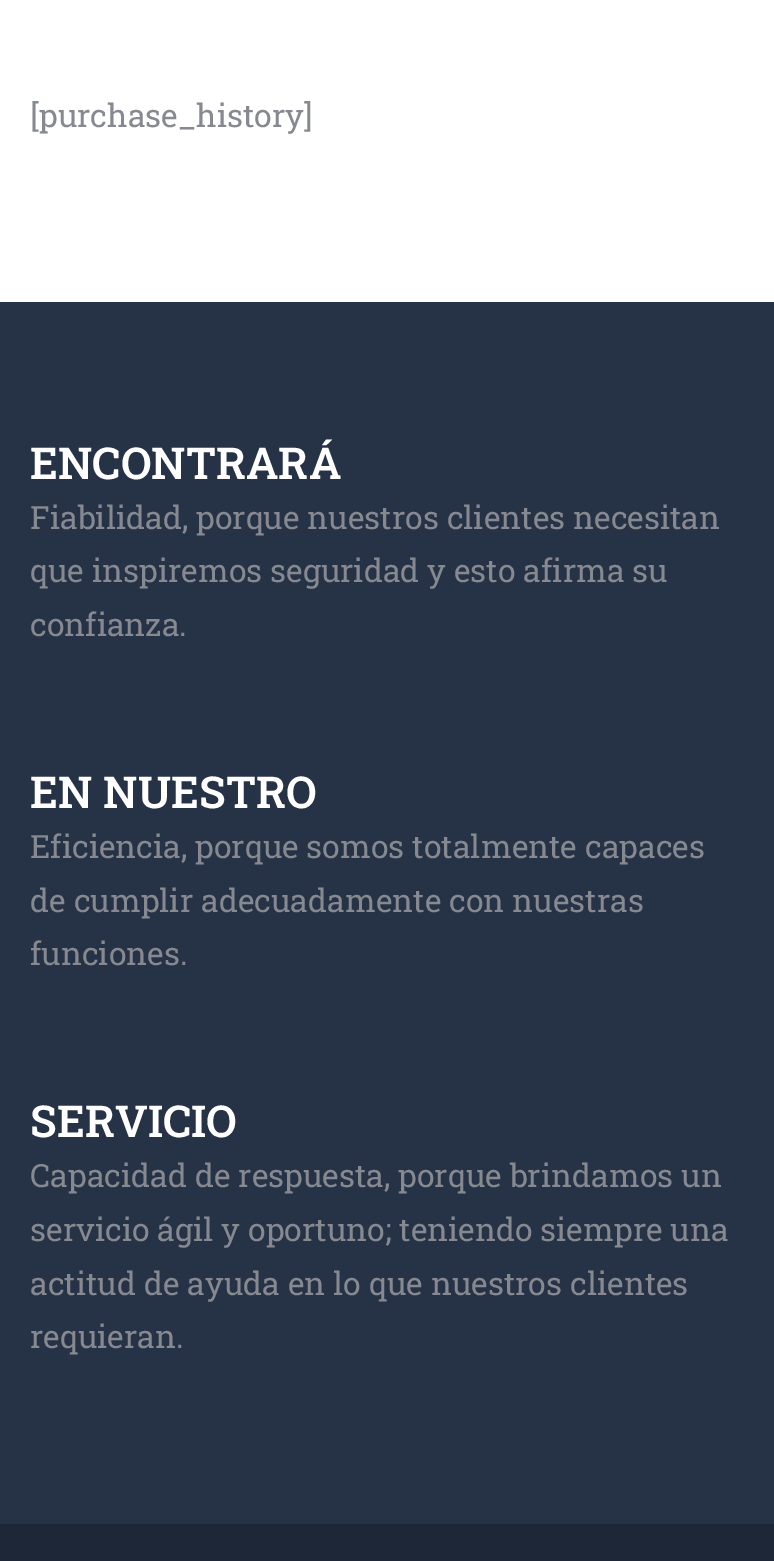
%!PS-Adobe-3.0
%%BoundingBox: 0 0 774 1561
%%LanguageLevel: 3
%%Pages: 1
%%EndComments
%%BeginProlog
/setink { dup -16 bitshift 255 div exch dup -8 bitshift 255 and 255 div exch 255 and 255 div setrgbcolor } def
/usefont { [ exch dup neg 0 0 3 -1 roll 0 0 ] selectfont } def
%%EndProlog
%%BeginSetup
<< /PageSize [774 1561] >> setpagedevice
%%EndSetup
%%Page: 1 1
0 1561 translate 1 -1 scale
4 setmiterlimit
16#FFFFFF setink
0 0 774 1561 rectfill
/RobotoSlab-Regular 32 usefont
16#868990 setink
30 127 moveto ([purchase_history]) show
16#263246 setink
0 302 774 1222 rectfill
/RobotoSlab-SemiBold 44 usefont
16#FFFFFF setink
30 479 moveto (ENCONTRARÁ) show
/RobotoSlab-Regular 32 usefont
16#868990 setink
[
    [(Fiabilidad, porque nuestros clientes necesitan) 30 529]
    [(que inspiremos seguridad y esto afirma su) 30 582]
    [(confianza.) 30 636]
] { aload pop moveto show } forall
/RobotoSlab-SemiBold 44 usefont
16#FFFFFF setink
30 808 moveto (EN NUESTRO) show
/RobotoSlab-Regular 32 usefont
16#868990 setink
[
    [(Eficiencia, porque somos totalmente capaces) 30 858]
    [(de cumplir adecuadamente con nuestras) 30 912]
    [(funciones.) 30 965]
] { aload pop moveto show } forall
/RobotoSlab-SemiBold 44 usefont
16#FFFFFF setink
30 1137 moveto (SERVICIO) show
/RobotoSlab-Regular 32 usefont
16#868990 setink
[
    [(Capacidad de respuesta, porque brindamos un) 30 1187]
    [(servicio ágil y oportuno; teniendo siempre una) 30 1241]
    [(actitud de ayuda en lo que nuestros clientes) 30 1295]
    [(requieran.) 30 1348]
] { aload pop moveto show } forall
16#1D2738 setink
0 1524 774 37 rectfill
showpage
%%EOF
